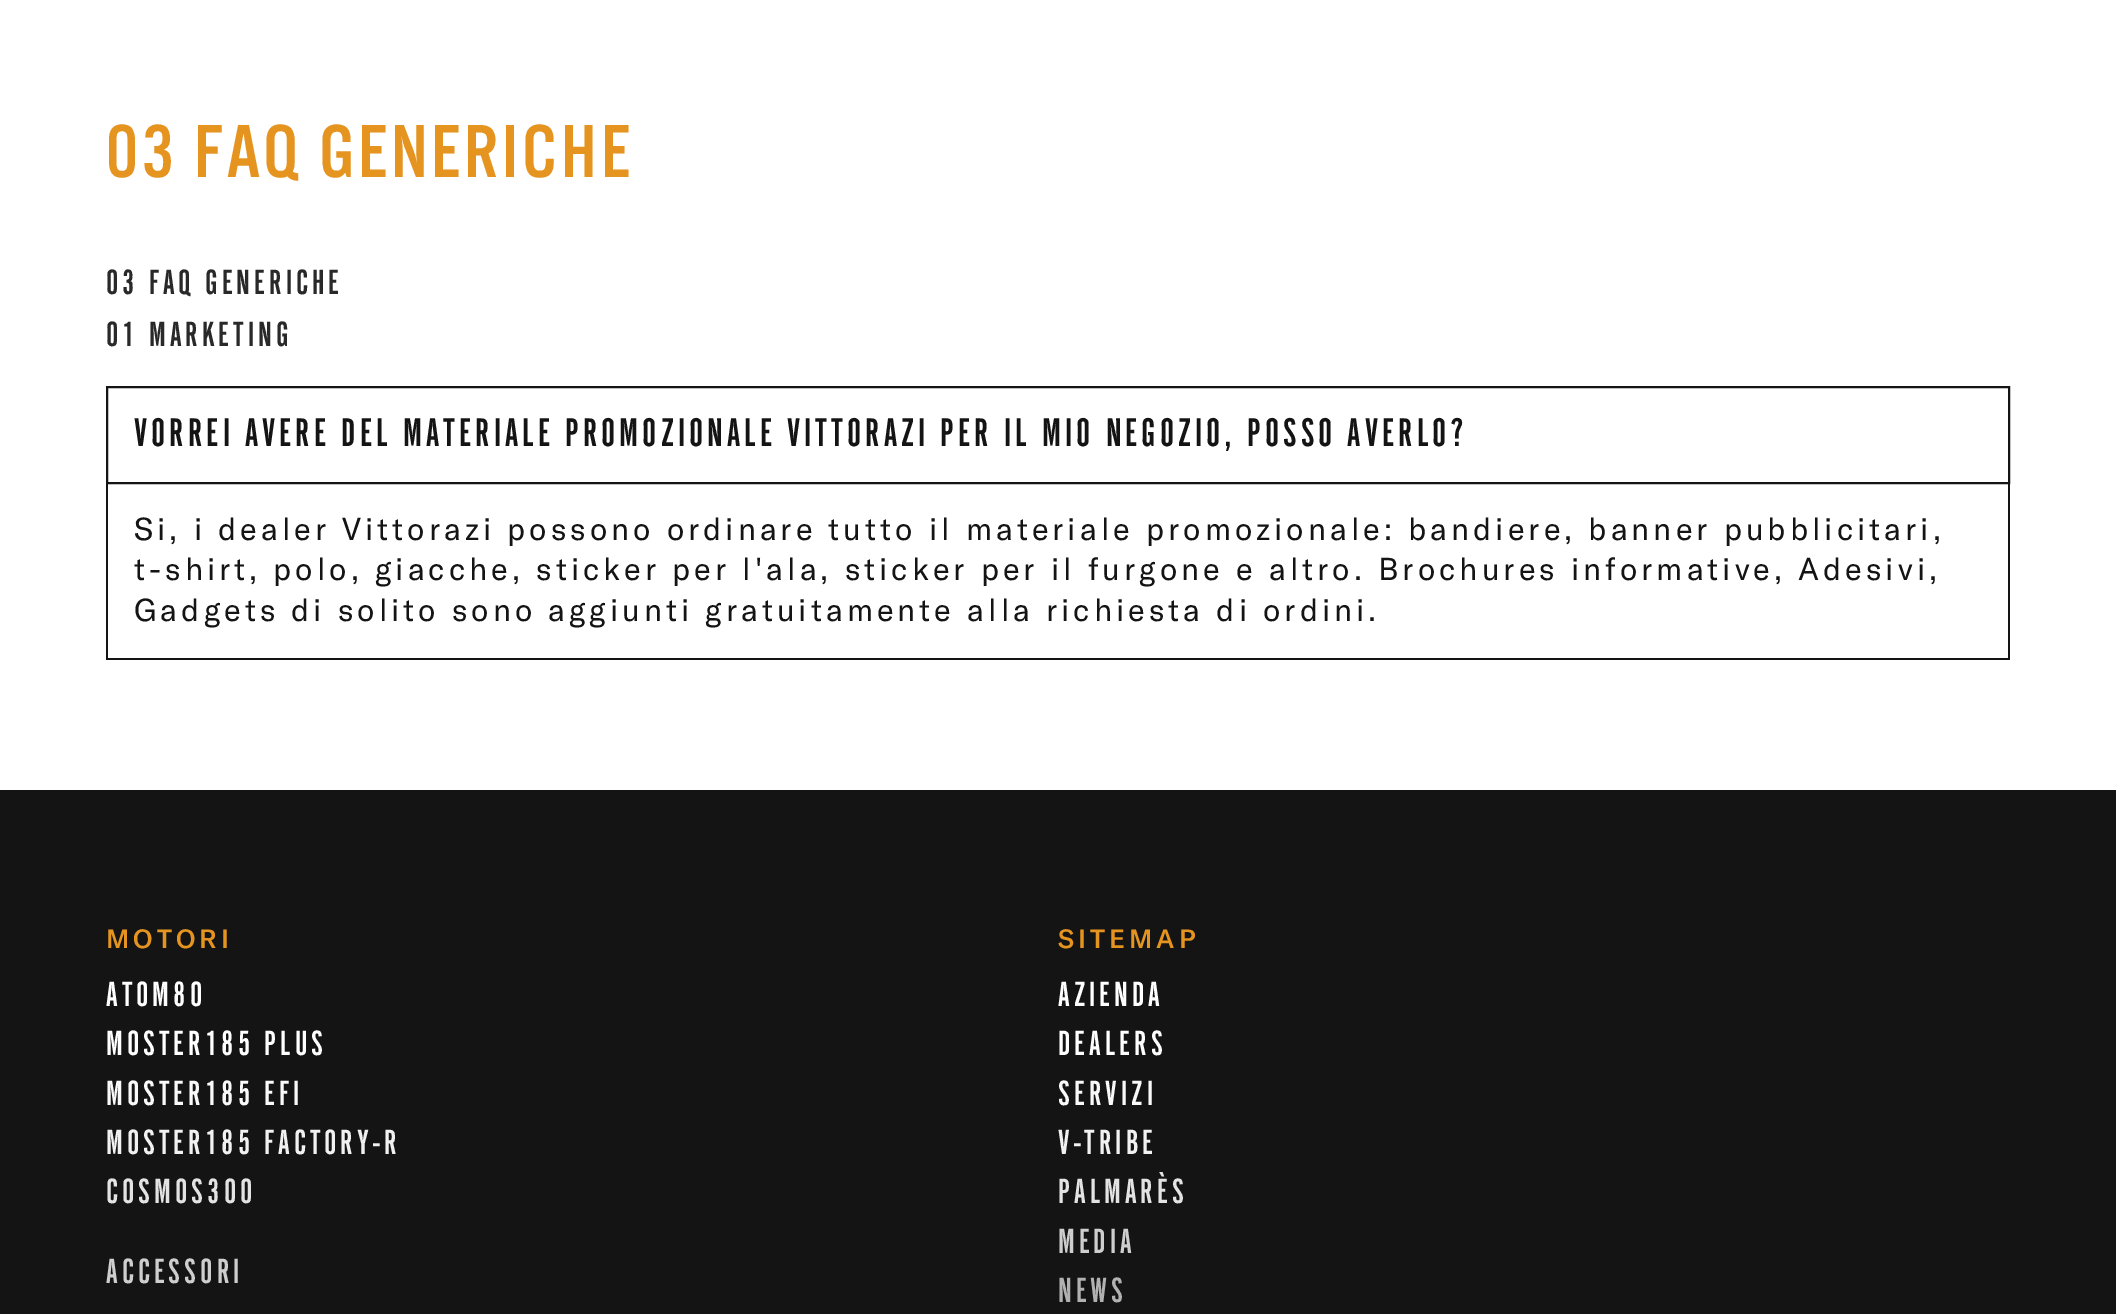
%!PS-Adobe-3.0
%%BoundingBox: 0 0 2116 1314
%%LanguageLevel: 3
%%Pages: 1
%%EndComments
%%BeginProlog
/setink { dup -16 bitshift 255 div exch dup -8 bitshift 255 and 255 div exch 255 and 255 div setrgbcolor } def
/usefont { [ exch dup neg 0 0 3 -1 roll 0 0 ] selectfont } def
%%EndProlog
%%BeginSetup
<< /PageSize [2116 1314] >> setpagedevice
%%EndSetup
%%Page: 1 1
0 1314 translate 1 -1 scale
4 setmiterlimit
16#FFFFFF setink
0 0 2116 1314 rectfill
/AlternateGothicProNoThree-Regular 78 usefont
16#E59420 setink
106 177 moveto 4 0 (03 FAQ GENERICHE) ashow
/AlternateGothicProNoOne-Regular 36.5 usefont
16#292929 setink
106 294 moveto 4 0 (03 FAQ GENERICHE) ashow
106 346 moveto 4 0 (01 MARKETING) ashow
16#141414 setink
2 setlinewidth
107 387 1902 96 rectstroke
/AlternateGothicProNoOne-Regular 41.6 usefont
134 446 moveto 4 0 (VORREI AVERE DEL MATERIALE PROMOZIONALE VITTORAZI PER IL MIO NEGOZIO, POSSO AVERLO?) ashow
[
    [2008 484 2 176 16#141414]
    [106 658 1904 2 16#141414]
    [106 484 2 176 16#141414]
] { aload pop setink rectfill } forall
/GTAmerica-Regular 31.2 usefont
134 540 moveto 4 0 (Si, i dealer Vittorazi possono ordinare tutto il materiale promozionale: bandiere, banner pubblicitari,) ashow
134 580 moveto 4 0 (t-shirt, polo, giacche, sticker per l'ala, sticker per il furgone e altro. Brochures informative, Adesivi,) ashow
134 621 moveto 4 0 (Gadgets di solito sono aggiunti gratuitamente alla richiesta di ordini.) ashow
0 790 2116 524 rectfill
/GTAmerica-Medium 26 usefont
16#E59420 setink
106 948 moveto 4 0 (MOTORI) ashow
/AlternateGothicProNoOne-Regular 36.5 usefont
16#FFFFFF setink
106 1006 moveto 4 0 (ATOM80) ashow
106 1055 moveto 4 0 (MOSTER185 PLUS) ashow
16#F9F9F9 setink
106 1105 moveto 4 0 (MOSTER185 EFI) ashow
16#F1F1F1 setink
106 1154 moveto 4 0 (MOSTER185 FACTORY-R) ashow
16#E3E3E3 setink
106 1203 moveto 4 0 (COSMOS300) ashow
16#CECECE setink
106 1283 moveto 4 0 (ACCESSORI) ashow
/GTAmerica-Medium 26 usefont
16#E59420 setink
1058 948 moveto 4 0 (SITEMAP) ashow
/AlternateGothicProNoOne-Regular 36.5 usefont
16#FFFFFF setink
1058 1006 moveto 4 0 (AZIENDA) ashow
1058 1055 moveto 4 0 (DEALERS) ashow
16#F9F9F9 setink
1058 1105 moveto 4 0 (SERVIZI) ashow
16#F1F1F1 setink
1058 1154 moveto 4 0 (V-TRIBE) ashow
16#E3E3E3 setink
1058 1203 moveto 4 0 (PALMARÈS) ashow
16#CECECE setink
1058 1253 moveto 4 0 (MEDIA) ashow
16#B1B1B1 setink
1058 1302 moveto 4 0 (NEWS) ashow
showpage
%%EOF
